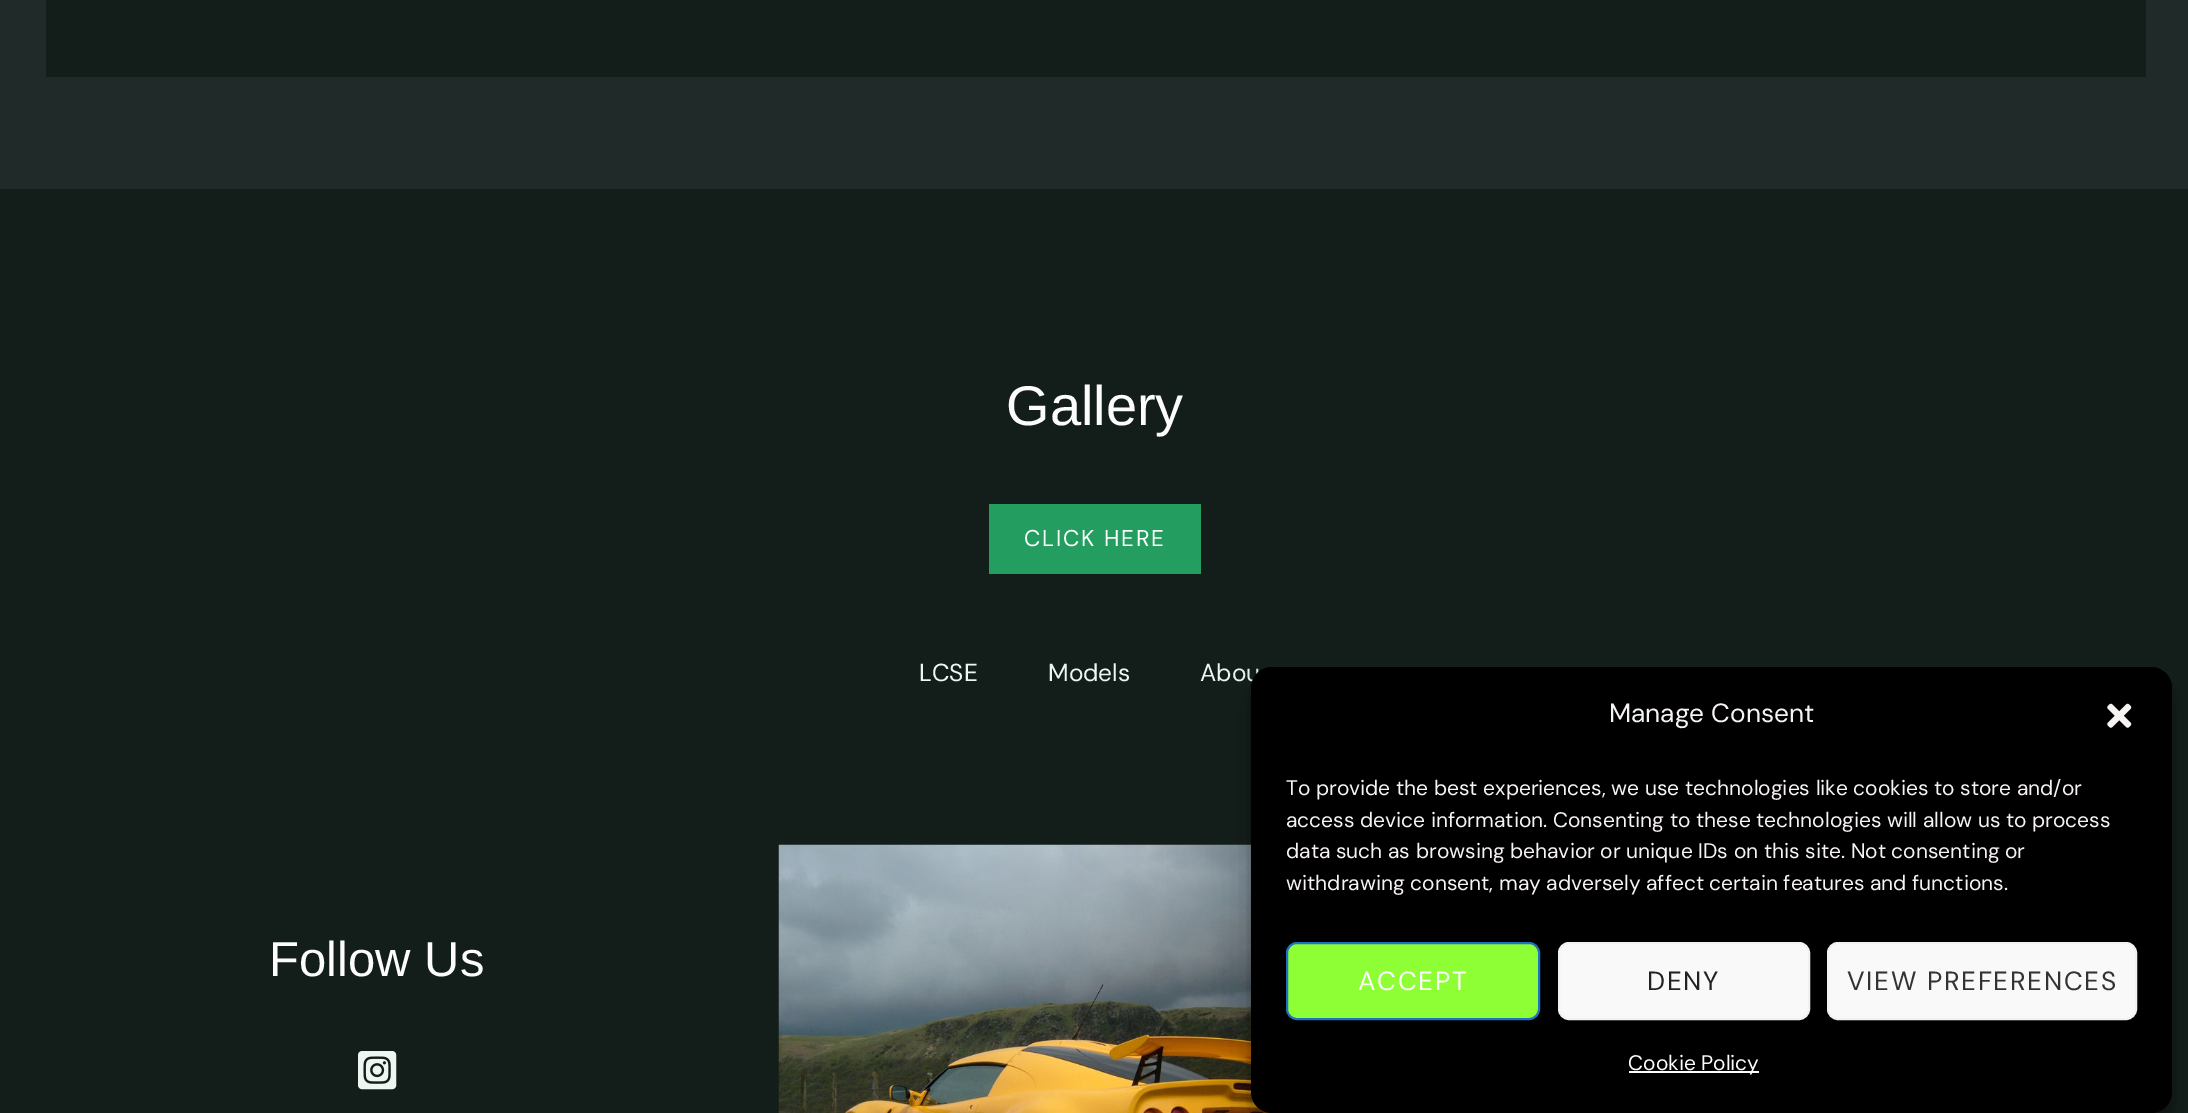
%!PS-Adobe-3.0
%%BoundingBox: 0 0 2188 1113
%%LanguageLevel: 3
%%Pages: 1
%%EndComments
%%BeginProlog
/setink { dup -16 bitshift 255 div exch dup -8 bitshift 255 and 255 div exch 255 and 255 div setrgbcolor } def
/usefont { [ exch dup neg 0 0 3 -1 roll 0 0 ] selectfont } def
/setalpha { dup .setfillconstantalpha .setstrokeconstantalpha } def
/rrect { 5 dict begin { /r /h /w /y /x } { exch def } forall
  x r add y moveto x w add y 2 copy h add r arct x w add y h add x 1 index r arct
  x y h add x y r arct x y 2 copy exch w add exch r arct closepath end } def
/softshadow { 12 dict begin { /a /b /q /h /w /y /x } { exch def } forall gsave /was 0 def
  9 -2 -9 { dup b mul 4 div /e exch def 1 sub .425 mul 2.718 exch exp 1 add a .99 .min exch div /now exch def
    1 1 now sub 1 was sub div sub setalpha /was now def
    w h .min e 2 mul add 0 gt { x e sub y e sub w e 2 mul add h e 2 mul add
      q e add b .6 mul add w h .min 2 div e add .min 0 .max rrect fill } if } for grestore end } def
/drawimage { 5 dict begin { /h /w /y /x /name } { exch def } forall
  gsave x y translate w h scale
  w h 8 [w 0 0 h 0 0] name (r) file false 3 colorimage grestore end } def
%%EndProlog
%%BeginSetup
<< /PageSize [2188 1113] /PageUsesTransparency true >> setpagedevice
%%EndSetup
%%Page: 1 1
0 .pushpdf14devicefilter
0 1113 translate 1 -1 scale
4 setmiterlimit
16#202B29 setink
0 0 2188 1113 rectfill
16#131D19 setink
46 0 2100 77 rectfill
0 189 2188 924 rectfill
/LiberationSans-Regular 56 usefont
16#FCFCFC setink
1006 425 moveto (Gallery) show
16#239D60 setink
989 504 212 70 rectfill
/DMSans-Regular 22.75 usefont
16#FCFCFC setink
1024 546 moveto 1.75 0 (CLICK HERE) ashow
/DMSans-Regular 24.5 usefont
16#EDF6F1 setink
[
    [(LCSE) 919 681]
    [(Models) 1048 681]
    [(Abou) 1200 681]
] { aload pop moveto show } forall
/LiberationSans-Regular 49 usefont
16#FCFCFC setink
269 976 moveto (Follow Us) show
(img1.raw) 358 1051 39 39 drawimage
(img2.raw) 778 844 494 269 drawimage
16#000000 setink
1251 677 921 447 21 5 0.23 softshadow
1251 684 921 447 21 17.5 0.19 softshadow
1251 667 921 446 21 rrect fill
/DMSans-Regular 26.25 usefont
16#F7F3F3 setink
1609 722 moveto (Manage Consent) show
(img3.raw) 2107 703 25 25 drawimage
/DMSans-Regular 21 usefont
[
    [(To provide the best experiences, we use technologies like cookies to store and/or) 1286 795]
    [(access device information. Consenting to these technologies will allow us to process) 1286 827]
    [(data such as browsing behavior or unique IDs on this site. Not consenting or) 1286 858]
    [(withdrawing consent, may adversely affect certain features and functions.) 1286 890]
] { aload pop moveto show } forall
16#8FFF35 setink
1287 943 252 76 10 rrect gsave fill grestore
16#1E73BE setink
2 setlinewidth
stroke
/DMSans-Regular 26.25 usefont
16#FCFCFC setink
1358 990 moveto 1.75 0 (ACCEPT) ashow
16#F9F9F9 setink
1559 943 250 76 10 rrect gsave fill grestore
16#F2F2F2 setink
stroke
16#222222 setink
1647 990 moveto 1.75 0 (DENY) ashow
16#F9F9F9 setink
1828 943 308 76 10 rrect gsave fill grestore
16#F2F2F2 setink
stroke
16#333333 setink
1847 990 moveto 1.75 0 (VIEW PREFERENCES) ashow
16#FFFFFF setink
1629 1071 130 2 rectfill
/DMSans-Regular 21 usefont
16#FCFCFC setink
1628 1070 moveto (Cookie Policy) show
.poppdf14devicefilter showpage
%%EOF
